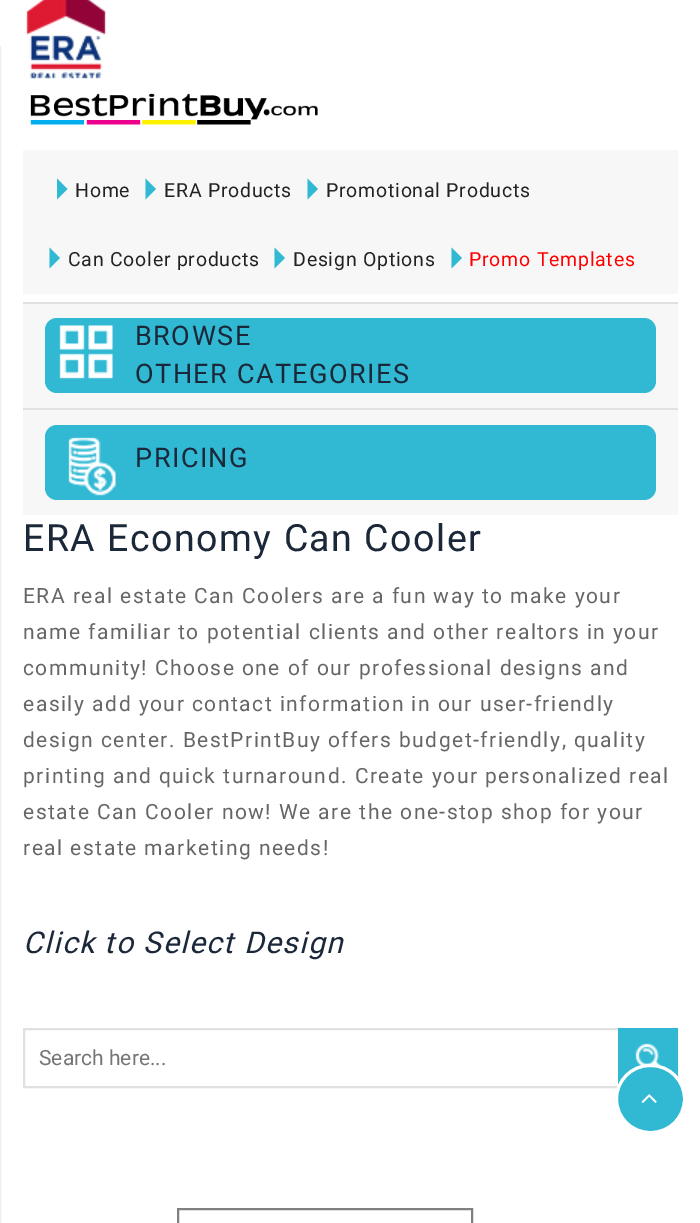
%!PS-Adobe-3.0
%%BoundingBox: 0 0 700 1223
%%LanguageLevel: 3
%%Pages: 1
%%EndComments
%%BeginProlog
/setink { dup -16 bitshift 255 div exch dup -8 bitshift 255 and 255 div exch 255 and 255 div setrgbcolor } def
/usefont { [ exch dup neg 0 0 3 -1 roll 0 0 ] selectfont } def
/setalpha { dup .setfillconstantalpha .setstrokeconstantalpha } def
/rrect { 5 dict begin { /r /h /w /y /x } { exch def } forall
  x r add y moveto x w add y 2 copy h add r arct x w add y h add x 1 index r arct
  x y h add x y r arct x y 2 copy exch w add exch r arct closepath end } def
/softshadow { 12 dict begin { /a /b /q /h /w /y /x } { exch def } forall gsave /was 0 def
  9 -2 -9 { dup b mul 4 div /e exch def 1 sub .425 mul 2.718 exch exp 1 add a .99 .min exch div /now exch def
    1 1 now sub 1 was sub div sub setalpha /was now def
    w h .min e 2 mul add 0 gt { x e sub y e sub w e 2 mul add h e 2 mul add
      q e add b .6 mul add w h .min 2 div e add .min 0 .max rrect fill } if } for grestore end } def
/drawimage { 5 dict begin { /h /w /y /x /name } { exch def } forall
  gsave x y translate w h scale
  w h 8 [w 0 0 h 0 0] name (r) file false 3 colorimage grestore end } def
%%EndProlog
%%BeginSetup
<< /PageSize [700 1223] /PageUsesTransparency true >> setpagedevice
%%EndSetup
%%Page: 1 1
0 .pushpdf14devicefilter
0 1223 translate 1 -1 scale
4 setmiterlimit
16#FFFFFF setink
0 0 700 1223 rectfill
16#000000 setink
-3 47 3 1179 0 1 0.2 softshadow
(img1.raw) 26 0 80 79 drawimage
(img2.raw) 30 93 288 32 drawimage
16#F7F7F7 setink
23 150 655 144 rectfill
16#31B9D4 setink
57 199.5 moveto 57 178.5 lineto 67.5 189 lineto closepath fill
/Roboto-Regular 19.5 usefont
16#222222 setink
75 197 moveto 0.75 0 (Home) ashow
16#31B9D4 setink
145.5 199.5 moveto 145.5 178.5 lineto 156 189 lineto closepath fill
16#222222 setink
164 197 moveto 0.75 0 (ERA Products) ashow
16#31B9D4 setink
307.5 199.5 moveto 307.5 178.5 lineto 318 189 lineto closepath fill
16#222222 setink
326 197 moveto 0.75 0 (Promotional Products) ashow
16#31B9D4 setink
49.5 268.5 moveto 49.5 247.5 lineto 60 258 lineto closepath fill
16#222222 setink
68 266 moveto 0.75 0 (Can Cooler products) ashow
16#31B9D4 setink
274.5 268.5 moveto 274.5 247.5 lineto 285 258 lineto closepath fill
16#222222 setink
293 266 moveto 0.75 0 (Design Options) ashow
16#31B9D4 setink
451.5 268.5 moveto 451.5 247.5 lineto 462 258 lineto closepath fill
16#FF0000 setink
469 266 moveto 0.75 0 (Promo Templates) ashow
[
    [23 304 655 211 16#F7F7F7]
    [23 302 655 2 16#E1E1E1]
    [23 408 655 2 16#E1E1E1]
] { aload pop setink rectfill } forall
16#31B9D4 setink
45 318 611 75 12 rrect fill
(img3.raw) 59 325 54 54 drawimage
/Roboto-Regular 27 usefont
16#1B2839 setink
135 345 moveto 1.5 0 (BROWSE) ashow
135 383 moveto 1.5 0 (OTHER CATEGORIES) ashow
16#31B9D4 setink
45 425 611 75 12 rrect fill
(img4.raw) 68 437 48 59 drawimage
16#1B2839 setink
135 467 moveto 1.5 0 (PRICING) ashow
/Roboto-Regular 37.5 usefont
23 551 moveto 1.5 0 (ERA Economy Can Cooler) ashow
/Roboto-Regular 21 usefont
16#666666 setink
23 603 moveto 1.5 0 (ERA real estate Can Coolers are a fun way to make your) ashow
23 639 moveto 1.5 0 (name familiar to potential clients and other realtors in your) ashow
23 675 moveto 1.5 0 (community! Choose one of our professional designs and) ashow
23 711 moveto 1.5 0 (easily add your contact information in our user-friendly) ashow
23 747 moveto 1.5 0 (design center. BestPrintBuy offers budget-friendly, quality) ashow
23 783 moveto 1.5 0 (printing and quick turnaround. Create your personalized real) ashow
23 819 moveto 1.5 0 (estate Can Cooler now! We are the one-stop shop for your) ashow
23 855 moveto 1.5 0 (real estate marketing needs!) ashow
/Roboto-Italic 30 usefont
16#1B2839 setink
23 953 moveto 1.5 0 (Click to Select Design) ashow
16#E1E1E1 setink
2 setlinewidth
24 1029 653 58 rectstroke
/Roboto-Regular 21 usefont
16#757575 setink
39 1065 moveto (Search here...) show
16#31B9D4 setink
618 1028 60 57 rectfill
(img5.raw) 635 1043 28 24 drawimage
16#808080 setink
178 1209 294 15 rectstroke
16#31B9D4 setink
616.5 1065.5 68 67 33.5 rrect gsave fill grestore
16#FFFFFF setink
3 setlinewidth
stroke
(img6.raw) 641 1094 16 9 drawimage
.poppdf14devicefilter showpage
%%EOF
